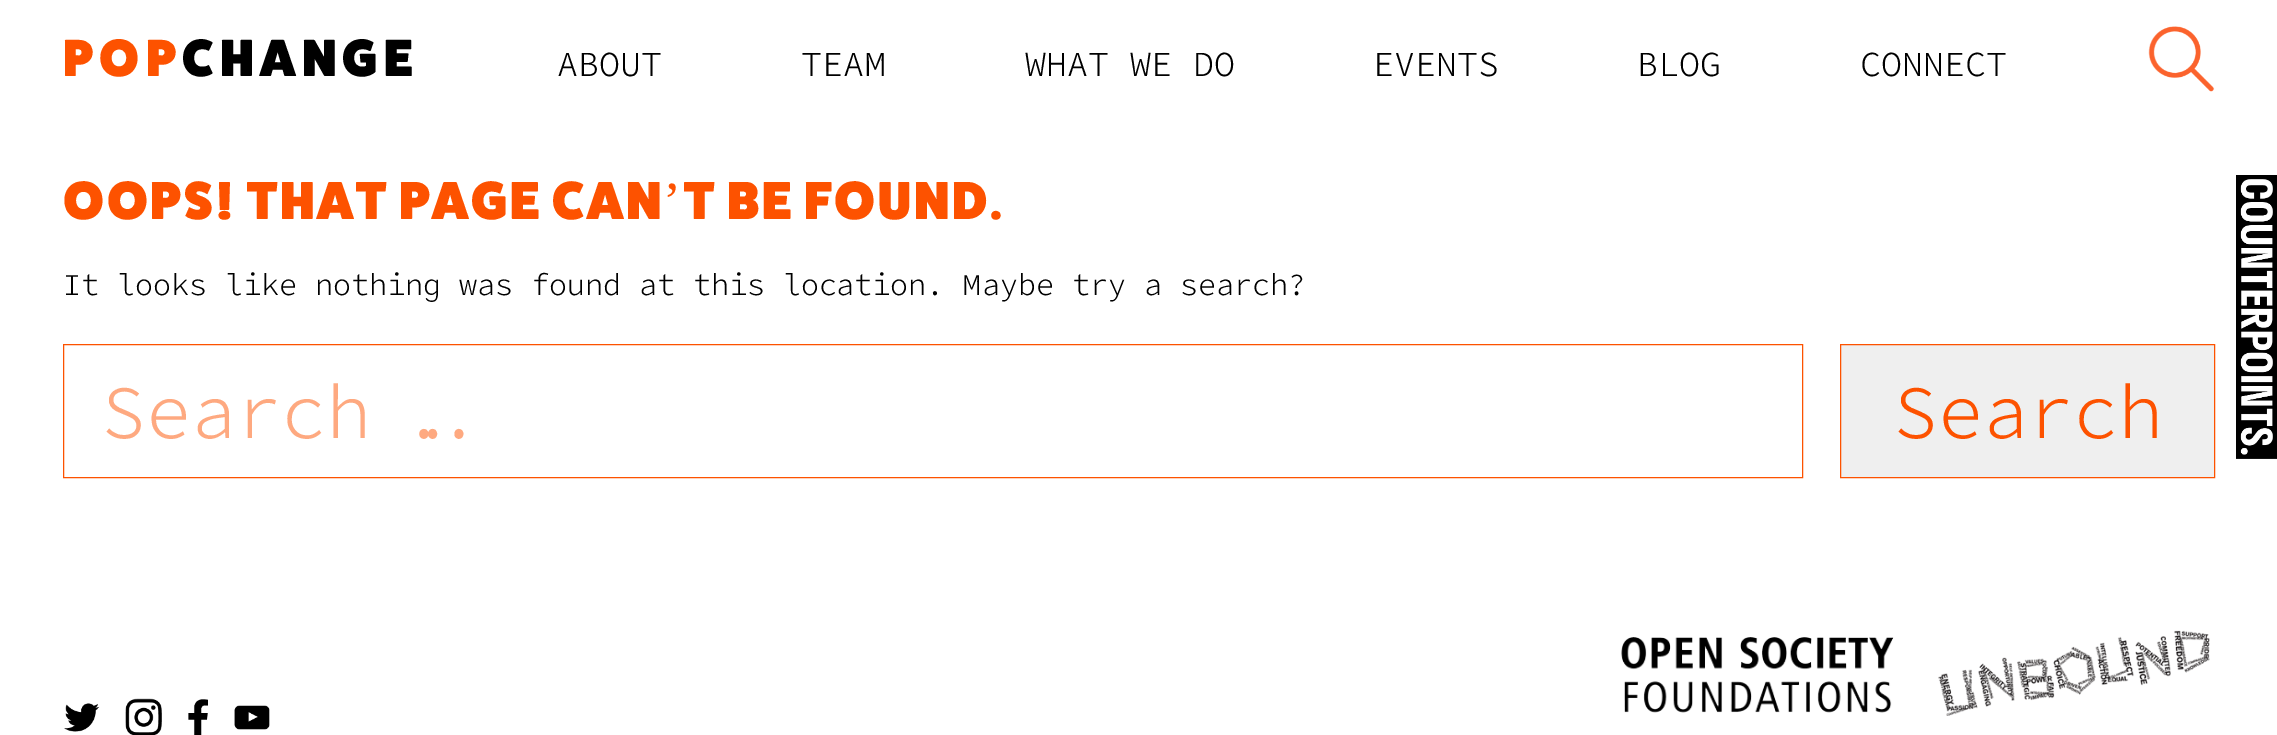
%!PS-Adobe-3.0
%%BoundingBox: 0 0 2277 735
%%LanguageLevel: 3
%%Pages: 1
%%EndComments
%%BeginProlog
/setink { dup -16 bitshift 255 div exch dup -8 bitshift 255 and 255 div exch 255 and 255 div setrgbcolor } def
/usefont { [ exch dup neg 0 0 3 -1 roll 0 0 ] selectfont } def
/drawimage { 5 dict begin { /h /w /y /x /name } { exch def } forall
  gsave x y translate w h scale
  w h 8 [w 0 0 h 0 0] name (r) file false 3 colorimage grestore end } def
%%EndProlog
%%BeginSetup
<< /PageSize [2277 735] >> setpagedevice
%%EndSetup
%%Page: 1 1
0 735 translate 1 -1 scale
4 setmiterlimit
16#FFFFFF setink
0 0 2277 735 rectfill
/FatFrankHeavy-Black 52.5 usefont
16#FD5200 setink
63 76 moveto 6.25 0 (POP) ashow
16#000000 setink
182 76 moveto 6.25 0 (CHANGE) ashow
/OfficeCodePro-Light 35 usefont
[
    [(ABOUT) 557 76]
    [(TEAM) 801 76]
    [(WHAT WE DO) 1025 76]
    [(EVENTS) 1373 76]
    [(BLOG) 1637 76]
    [(CONNECT) 1860 76]
] { aload pop moveto show } forall
(img1.raw) 2148 26 67 66 drawimage
(img2.raw) 2236 175 41 284 drawimage
(img3.raw) 64 703 36 29 drawimage
(img4.raw) 125 698 37 37 drawimage
(img5.raw) 188 699 20 36 drawimage
(img6.raw) 234 705 36 25 drawimage
(img7.raw) 1621 637 273 76 drawimage
(img8.raw) 1938 630 272 86 drawimage
/FatFrankHeavy-Black 53.75 usefont
16#FD5200 setink
63 219 moveto 2.7 0 (OOPS! THAT PAGE CAN) ashow
/LiberationSerif-Regular 53.75 usefont
663 219 moveto 2.7 0 (’) ashow
/FatFrankHeavy-Black 53.75 usefont
684 219 moveto 2.7 0 (T BE FOUND.) ashow
/OfficeCodePro-Light 30 usefont
16#000000 setink
63 295 moveto (It looks like nothing was found at this location. Maybe try a search?) show
16#FD5200 setink
63.5 344.5 1739 133 rectstroke
/OfficeCodePro-Light 75 usefont
16#FEA980 setink
101 438 moveto (Search …) show
16#EFEFEF setink
1840.5 344.5 moveto 2214.5 344.5 lineto 2214.5 477.5 lineto 1840.5 477.5 lineto closepath gsave fill grestore
16#FD5200 setink
stroke
1893 438 moveto (Search) show
showpage
%%EOF
